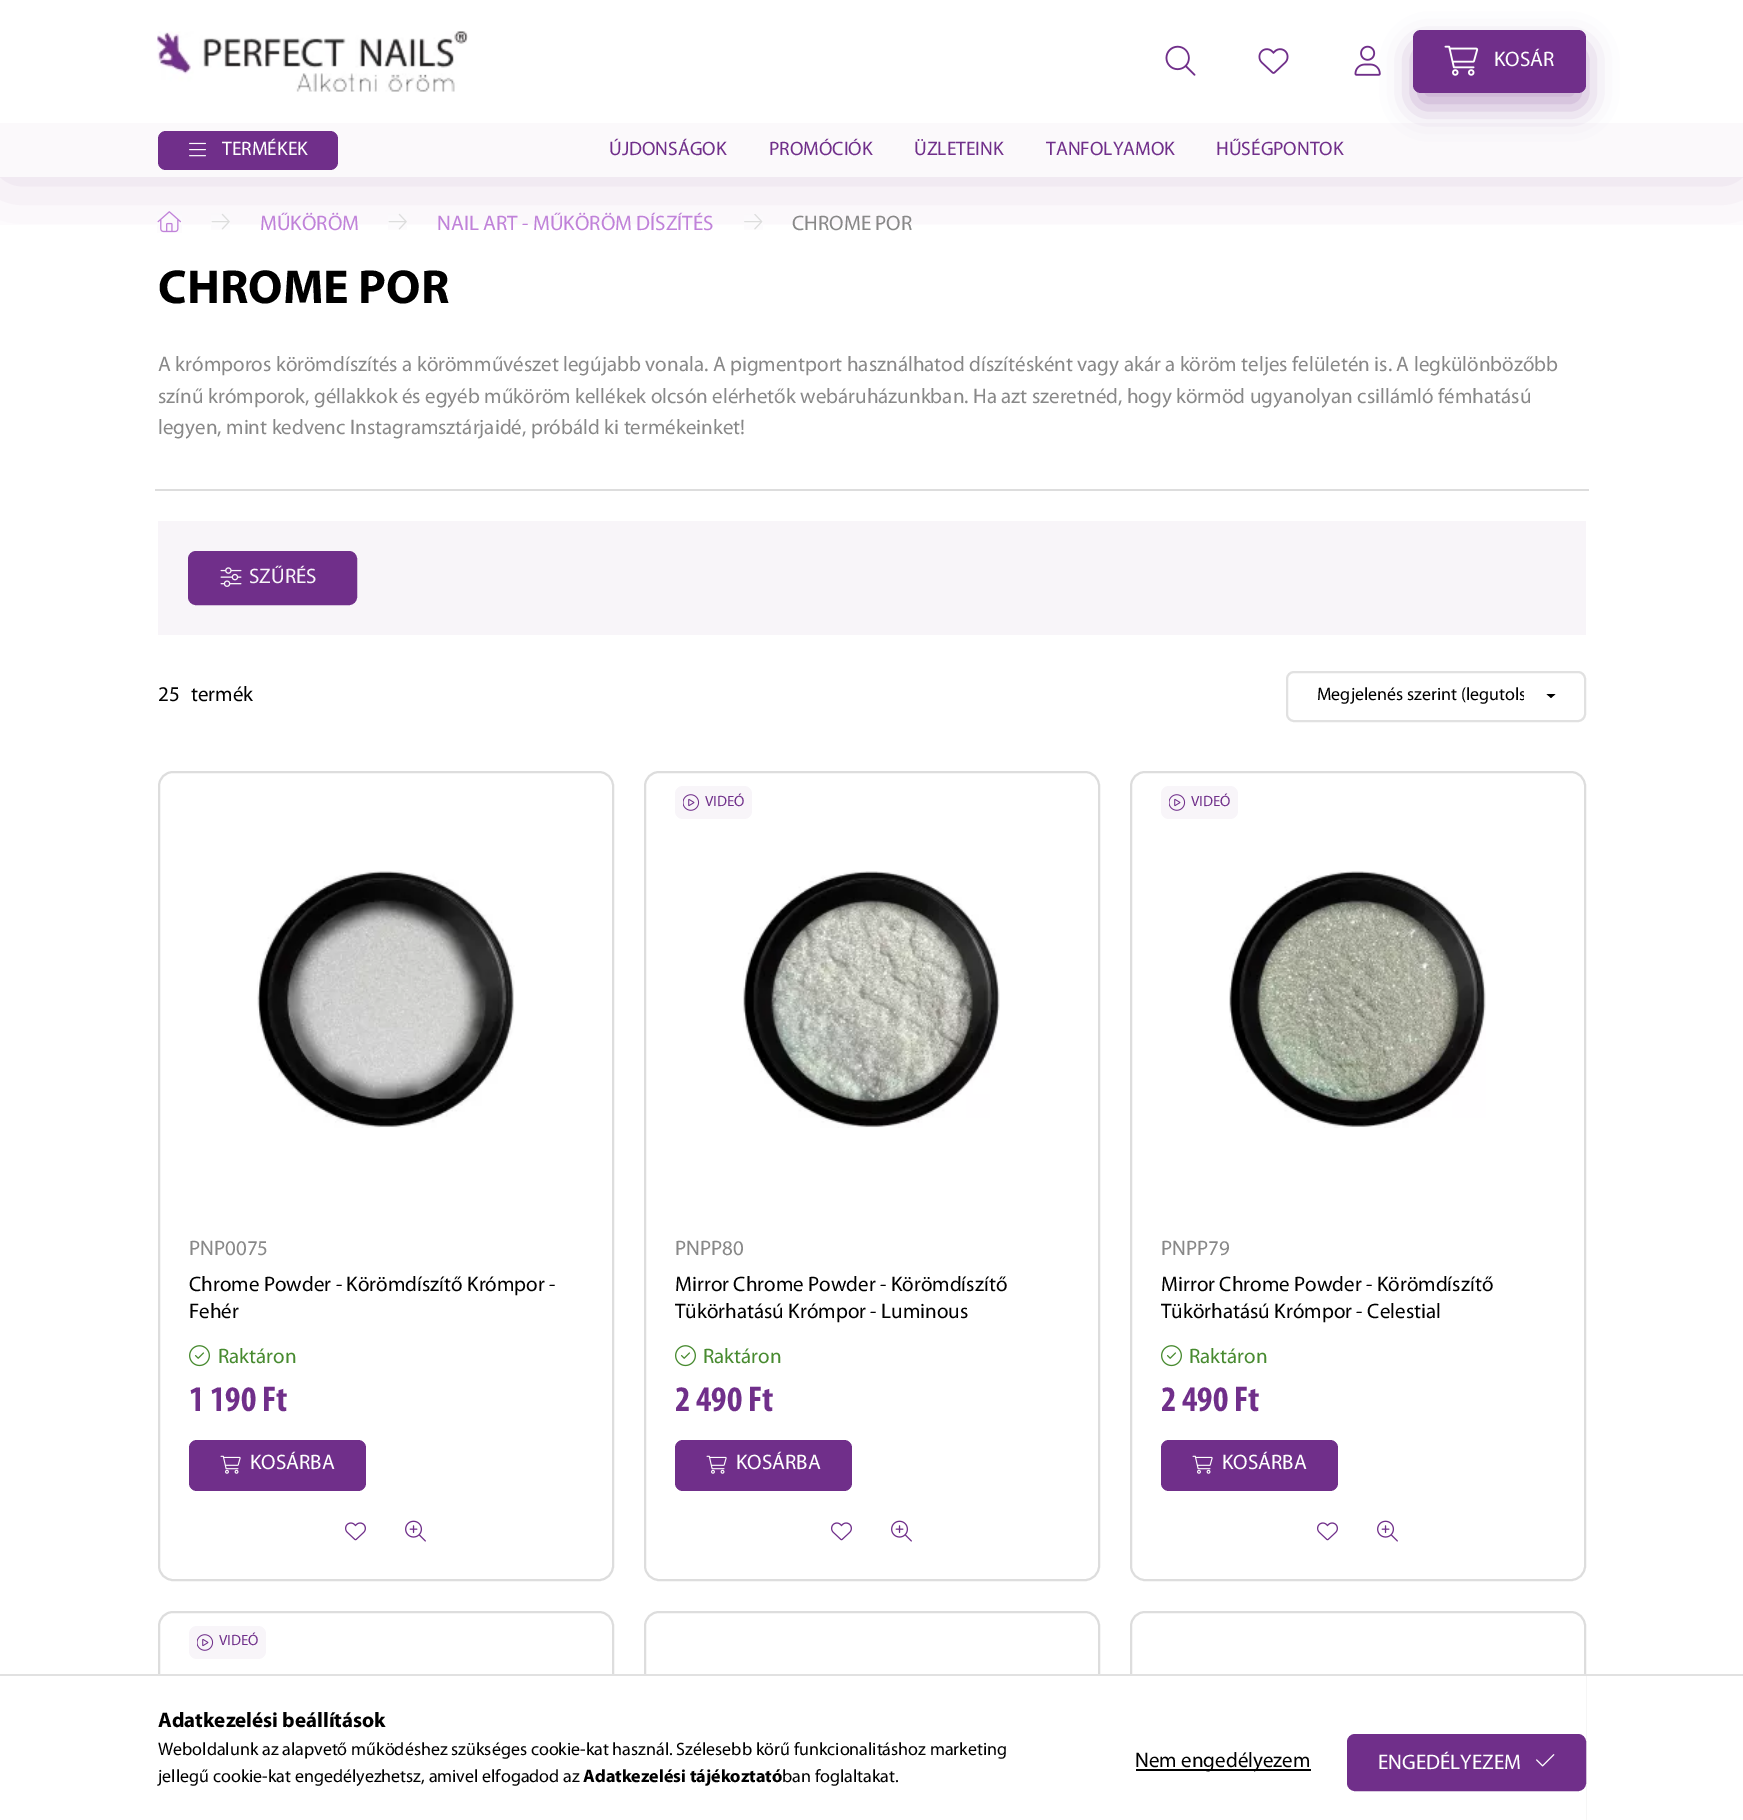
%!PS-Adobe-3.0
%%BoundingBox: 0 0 1743 1820
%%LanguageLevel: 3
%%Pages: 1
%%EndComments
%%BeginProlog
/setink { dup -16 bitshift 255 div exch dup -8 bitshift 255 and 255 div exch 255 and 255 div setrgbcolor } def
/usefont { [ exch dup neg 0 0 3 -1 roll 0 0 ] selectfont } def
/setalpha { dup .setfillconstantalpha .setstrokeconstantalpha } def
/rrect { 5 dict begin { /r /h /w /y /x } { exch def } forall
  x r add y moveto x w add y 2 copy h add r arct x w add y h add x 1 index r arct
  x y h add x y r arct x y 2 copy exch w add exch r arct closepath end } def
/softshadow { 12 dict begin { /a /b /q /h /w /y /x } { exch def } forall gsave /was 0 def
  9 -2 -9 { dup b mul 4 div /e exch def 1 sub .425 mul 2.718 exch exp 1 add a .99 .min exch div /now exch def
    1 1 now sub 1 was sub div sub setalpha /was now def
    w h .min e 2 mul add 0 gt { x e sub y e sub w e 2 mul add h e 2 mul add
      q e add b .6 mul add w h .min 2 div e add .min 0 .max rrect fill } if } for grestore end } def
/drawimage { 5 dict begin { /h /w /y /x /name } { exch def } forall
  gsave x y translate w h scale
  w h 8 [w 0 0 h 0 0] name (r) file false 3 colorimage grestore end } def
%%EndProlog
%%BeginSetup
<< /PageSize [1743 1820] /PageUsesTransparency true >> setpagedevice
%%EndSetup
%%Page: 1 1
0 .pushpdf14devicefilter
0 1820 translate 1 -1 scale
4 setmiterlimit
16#FFFFFF setink
0 0 1743 1820 rectfill
16#F8F5F9 setink
158 521 1428 114 rectfill
gsave
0 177 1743 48 rectclip
16#702F8A setink
0 0 1743 177 0 37.5 0.2 softshadow
grestore
(img1.raw) 157 31 311 61 drawimage
(img2.raw) 1165 45 31 31 drawimage
(img3.raw) 1258 48 31 26 drawimage
(img4.raw) 1354 45 27 31 drawimage
16#FBF9FB setink
0 123 1743 54 rectfill
16#702F8A setink
1413 45 173 63 8 15 0.4 softshadow
1413 30 173 63 8 rrect fill
(img5.raw) 1444 45 35 31 drawimage
/Myriad-Regular 21 usefont
16#FFFFFF setink
1494 66 moveto (KOSÁR) show
16#702F8A setink
158 131 180 39 8 rrect fill
(img6.raw) 189 142 17 15 drawimage
/Myriad-Regular 19.5 usefont
16#FFFFFF setink
222 155 moveto (TERMÉKEK) show
16#702F8A setink
[
    [(ÚJDONSÁGOK) 609 155]
    [(PROMÓCIÓK) 769 155]
    [(ÜZLETEINK) 914 155]
    [(TANFOLYAMOK) 1046 155]
    [(HŰSÉGPONTOK) 1216 155]
] { aload pop moveto show } forall
(img7.raw) 157 211 25 22 drawimage
(img8.raw) 211 213 19 17 drawimage
/Myriad-Regular 21 usefont
16#C082D9 setink
260 230 moveto (MŰKÖRÖM) show
(img8.raw) 388 213 19 17 drawimage
437 230 moveto (NAIL ART - MŰKÖRÖM DÍSZÍTÉS) show
(img9.raw) 744 214 19 16 drawimage
16#888888 setink
792 230 moveto (CHROME POR) show
/Myriad-Bold 48 usefont
16#000000 setink
158 303 moveto (CHROME POR) show
16#DDDDDD setink
155 489 1434 2 rectfill
/Myriad-Regular 21 usefont
16#888888 setink
[
    [(A krómporos körömdíszítés a körömművészet legújabb vonala. A pigmentport használhatod díszítésként vagy akár a köröm teljes felületén is. A legkülönbözőbb) 158 371]
    [(színű krómporok, géllakkok és egyéb műköröm kellékek olcsón elérhetők webáruházunkban. Ha azt szeretnéd, hogy körmöd ugyanolyan csillámló fémhatású) 158 403]
    [(legyen, mint kedvenc Instagramsztárjaidé, próbáld ki termékeinket!) 158 434]
] { aload pop moveto show } forall
16#702F8A setink
189 552 167 52 7 rrect gsave fill grestore
2 setlinewidth
stroke
(img10.raw) 220 567 22 20 drawimage
16#F8F5F9 setink
249 583 moveto (SZŰRÉS) show
16#000000 setink
158 701 moveto (25) show
191 701 moveto (termék) show
16#E1E1E1 setink
1287 672 298 49 7 rrect stroke
gsave
1317 686 207 21 rectclip
/Myriad-Regular 18 usefont
16#000000 setink
1317 700 moveto (Megjelenés szerint \(legutols) show
grestore
16#000000 setink
1546.5 694 moveto 1555.5 694 lineto 1551 698 lineto closepath fill
16#DDDDDD setink
159 772 454 808 14 rrect stroke
(img11.raw) 257 870 258 258 drawimage
16#888888 setink
189 1255 moveto (PNP0075) show
16#000000 setink
189 1291 moveto (Chrome Powder - Körömdíszítő Krómpor -) show
189 1318 moveto (Fehér) show
(img12.raw) 189 1345 21 22 drawimage
16#478A2F setink
218 1363 moveto (Raktáron) show
/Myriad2-Bold 36 usefont
16#702F8A setink
189 1411 moveto (1 190 Ft) show
189 1440 177 51 8 rrect fill
(img13.raw) 220 1455 21 19 drawimage
/Myriad-Regular 21 usefont
16#FFFFFF setink
250 1469 moveto (KOSÁRBA) show
(img14.raw) 345 1522 21 19 drawimage
(img15.raw) 405 1520 21 22 drawimage
16#DDDDDD setink
645 772 454 808 14 rrect stroke
16#F8F5F9 setink
675 786 77 33 8 rrect fill
(img16.raw) 683 794 17 17 drawimage
/Myriad-Regular 15 usefont
16#702F8A setink
705 806 moveto (VIDEÓ) show
(img17.raw) 743 870 257 258 drawimage
/Myriad-Regular 21 usefont
16#888888 setink
675 1255 moveto (PNPP80) show
16#000000 setink
675 1291 moveto (Mirror Chrome Powder - Körömdíszítő) show
675 1318 moveto (Tükörhatású Krómpor - Luminous) show
(img12.raw) 675 1345 21 22 drawimage
16#478A2F setink
703 1363 moveto (Raktáron) show
/Myriad2-Bold 36 usefont
16#702F8A setink
675 1411 moveto (2 490 Ft) show
675 1440 177 51 8 rrect fill
(img13.raw) 706 1455 21 19 drawimage
/Myriad-Regular 21 usefont
16#FFFFFF setink
736 1469 moveto (KOSÁRBA) show
(img14.raw) 831 1522 21 19 drawimage
(img15.raw) 891 1520 21 22 drawimage
16#DDDDDD setink
1131 772 454 808 14 rrect stroke
16#F8F5F9 setink
1161 786 77 33 8 rrect fill
(img16.raw) 1169 794 17 17 drawimage
/Myriad-Regular 15 usefont
16#702F8A setink
1191 806 moveto (VIDEÓ) show
(img18.raw) 1229 870 257 258 drawimage
/Myriad-Regular 21 usefont
16#888888 setink
1161 1255 moveto (PNPP79) show
16#000000 setink
1161 1291 moveto (Mirror Chrome Powder - Körömdíszítő) show
1161 1318 moveto (Tükörhatású Krómpor - Celestial) show
(img12.raw) 1161 1345 21 22 drawimage
16#478A2F setink
1189 1363 moveto (Raktáron) show
/Myriad2-Bold 36 usefont
16#702F8A setink
1161 1411 moveto (2 490 Ft) show
1161 1440 177 51 8 rrect fill
(img13.raw) 1192 1455 21 19 drawimage
/Myriad-Regular 21 usefont
16#FFFFFF setink
1222 1469 moveto (KOSÁRBA) show
(img14.raw) 1317 1522 21 19 drawimage
(img15.raw) 1377 1520 21 22 drawimage
16#DDDDDD setink
159 1612 454 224 14 rrect stroke
16#F8F5F9 setink
189 1626 77 33 8 rrect fill
(img16.raw) 197 1634 17 17 drawimage
/Myriad-Regular 15 usefont
16#702F8A setink
219 1645 moveto (VIDEÓ) show
16#DDDDDD setink
645 1612 454 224 14 rrect stroke
1131 1612 454 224 14 rrect stroke
16#FFFFFF setink
158 1676 1428 144 rectfill
16#E1E1E1 setink
0 1674 1743 2 rectfill
/Myriad-Bold 21 usefont
16#000000 setink
158 1727 moveto (Adatkezelési beállítások) show
/Myriad-Regular 18 usefont
158 1755 moveto (Weboldalunk az alapvető működéshez szükséges cookie-kat használ. Szélesebb körű funkcionalitáshoz marketing) show
158 1782 moveto (jellegű cookie-kat engedélyezhetsz, amivel elfogadod az) show
/Myriad-Bold 18 usefont
583 1782 moveto (Adatkezelési tájékoztató) show
/Myriad-Regular 18 usefont
782 1782 moveto (ban foglaltakat.) show
1136 1769 175 2 rectfill
/Myriad-Regular 21 usefont
1135 1767 moveto (Nem engedélyezem) show
16#702F8A setink
1348 1735 237 55 7 rrect gsave fill grestore
stroke
16#FFFFFF setink
1378 1769 moveto (ENGEDÉLYEZEM) show
(img19.raw) 1536 1754 19 13 drawimage
.poppdf14devicefilter showpage
%%EOF
